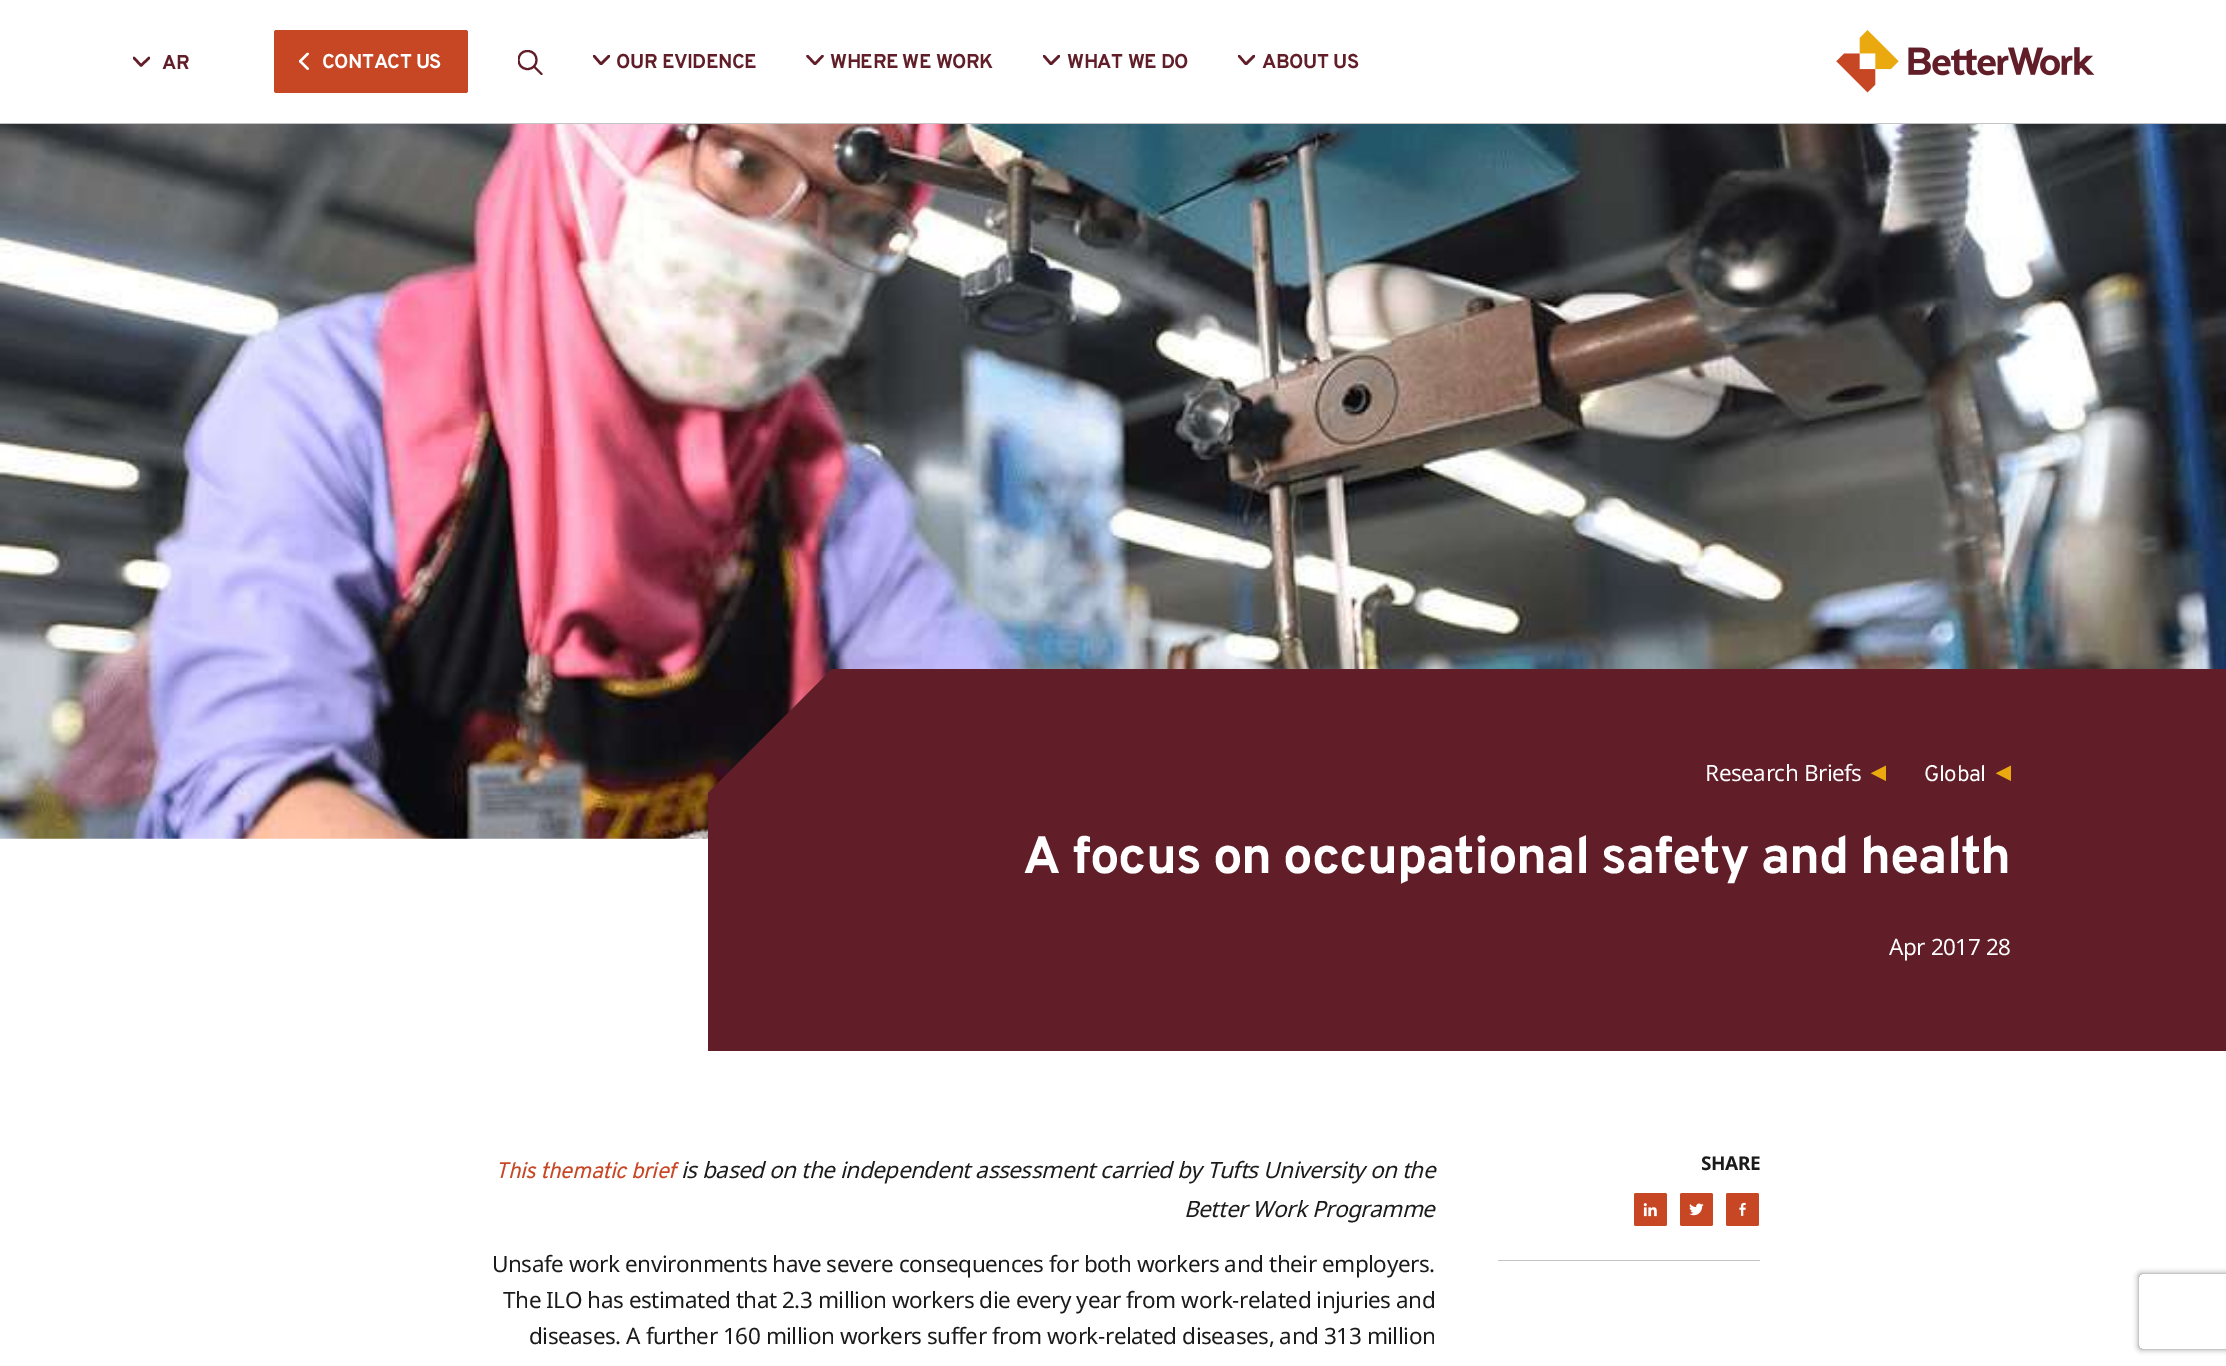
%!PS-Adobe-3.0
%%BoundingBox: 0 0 2226 1366
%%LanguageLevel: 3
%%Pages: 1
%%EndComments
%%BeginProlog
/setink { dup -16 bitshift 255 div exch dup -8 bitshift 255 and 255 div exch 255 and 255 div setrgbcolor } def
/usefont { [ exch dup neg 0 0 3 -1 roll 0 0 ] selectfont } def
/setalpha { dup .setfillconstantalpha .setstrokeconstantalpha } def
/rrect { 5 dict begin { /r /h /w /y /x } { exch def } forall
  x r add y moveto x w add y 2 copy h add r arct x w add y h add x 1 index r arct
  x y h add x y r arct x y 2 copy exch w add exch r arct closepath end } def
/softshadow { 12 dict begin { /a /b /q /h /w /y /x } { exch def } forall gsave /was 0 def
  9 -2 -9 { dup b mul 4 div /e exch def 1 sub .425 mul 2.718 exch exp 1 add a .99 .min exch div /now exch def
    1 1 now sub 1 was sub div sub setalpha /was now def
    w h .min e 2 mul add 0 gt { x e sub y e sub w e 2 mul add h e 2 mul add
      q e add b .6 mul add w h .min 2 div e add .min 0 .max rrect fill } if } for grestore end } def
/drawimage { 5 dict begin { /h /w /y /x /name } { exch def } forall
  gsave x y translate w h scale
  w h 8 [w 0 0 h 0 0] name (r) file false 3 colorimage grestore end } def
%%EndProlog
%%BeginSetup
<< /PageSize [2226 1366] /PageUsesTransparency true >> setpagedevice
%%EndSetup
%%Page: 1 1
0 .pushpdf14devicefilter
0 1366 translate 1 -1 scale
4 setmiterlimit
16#FFFFFF setink
0 0 2226 1366 rectfill
16#C4C4C4 setink
0 123 2226 1 rectfill
gsave
133 56 17 12 rectclip
16#611E29 setink
2.5 setlinewidth
1 setlinecap
1 setlinejoin
134 58 moveto 141 65.5 lineto 149 58 lineto stroke
grestore
/Overpass-Bold 20 usefont
16#611E29 setink
162 69 moveto -0.45 0 (AR) ashow
16#C74724 setink
274 30 194 63 2.5 rrect fill
(img1.raw) 299 52 10 18 drawimage
16#FFFFFF setink
322 68 moveto -0.5 0 (CONTACT US) ashow
gsave
518 50 25 25 rectclip
16#611E29 setink
2.1 setlinewidth
1 setlinecap
1 setlinejoin
527.5 69 moveto 539.5 69 539.5 51 527.5 51 curveto 515.5 51 515.5 69 527.5 69 curveto closepath stroke
grestore
16#611E29 setink
2.1 setlinewidth
1 setlinecap
1 setlinejoin
541.5 74 moveto 534 66.5 lineto stroke
gsave
593 55 17 10 rectclip
2.5 setlinewidth
609 56 moveto 601 64 lineto 594 56 moveto 601 64 lineto stroke
grestore
616 68 moveto -0.45 0 (OUR EVIDENCE) ashow
gsave
806 55 18 10 rectclip
2.5 setlinewidth
822.5 56 moveto 815 64 lineto 807.5 56 moveto 815 64 lineto stroke
grestore
830 68 moveto -0.45 0 (WHERE WE WORK) ashow
gsave
1043 55 17 10 rectclip
2.5 setlinewidth
1059 56 moveto 1051 64 lineto 1044 56 moveto 1051 64 lineto stroke
grestore
1067 68 moveto -0.45 0 (WHAT WE DO) ashow
gsave
1238 55 17 10 rectclip
2.5 setlinewidth
1254 56 moveto 1246 64 lineto 1239 56 moveto 1246 64 lineto stroke
grestore
1262 68 moveto -0.45 0 (ABOUT US) ashow
(img2.raw) 1836 30 259 63 drawimage
(img3.raw) 0 124 2226 715 drawimage
708 793 moveto 832 669 lineto 2226 669 lineto 2226 1051 lineto 708 1051 lineto closepath fill
(img4.raw) 1870 765 16 16 drawimage
/NotoSans-Regular 22.5 usefont
16#FFFFFF setink
1705 781 moveto -0.45 0 (Research Briefs) ashow
(img4.raw) 1995 765 16 16 drawimage
/Overpass-Regular 22.5 usefont
1924 781 moveto -0.45 0 (Global) ashow
/Overpass-Bold 52.5 usefont
1023 873 moveto -1.05 0 (A focus on occupational safety and health) ashow
/NotoSans-Regular 22.5 usefont
1889 955 moveto -0.45 0 (Apr 2017 28) ashow
/Overpass-Italic 22.5 usefont
16#C74724 setink
495 1178 moveto -0.45 0 (This thematic brief) ashow
/NotoSans-Italic 22.5 usefont
16#1B1B1B setink
681 1178 moveto -0.45 0 (is based on the independent assessment carried by Tufts University on the) ashow
1184 1217 moveto -0.45 0 (Better Work Programme) ashow
/NotoSans-Regular 22.5 usefont
492 1272 moveto -0.45 0 (Unsafe work environments have severe consequences for both workers and their employers.) ashow
503 1308 moveto -0.45 0 (The ILO has estimated that 2.3 million workers die every year from work-related injuries and) ashow
529 1344 moveto -0.45 0 (diseases. A further 160 million workers suffer from work-related diseases, and 313 million) ashow
16#C4C4C4 setink
1498 1260 262 1 rectfill
/NotoSans-Bold 19 usefont
16#1B1B1B setink
1701 1170 moveto -0.5 0 (SHARE) ashow
(img5.raw) 1634 1193 33 33 drawimage
(img6.raw) 1680 1193 33 33 drawimage
(img7.raw) 1726 1193 33 33 drawimage
gsave
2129 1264 moveto 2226 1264 lineto 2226 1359 lineto 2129 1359 lineto closepath 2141.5 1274 moveto 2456.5 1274 lineto 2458 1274 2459 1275 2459 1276.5 curveto 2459 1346.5 lineto 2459 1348 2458 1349 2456.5 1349 curveto 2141.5 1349 lineto 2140 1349 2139 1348 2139 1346.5 curveto 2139 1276.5 lineto 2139 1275 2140 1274 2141.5 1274 curveto closepath eoclip newpath
16#808080 setink
2139 1274 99 75 2.5 3 1 softshadow
grestore
.poppdf14devicefilter showpage
%%EOF
